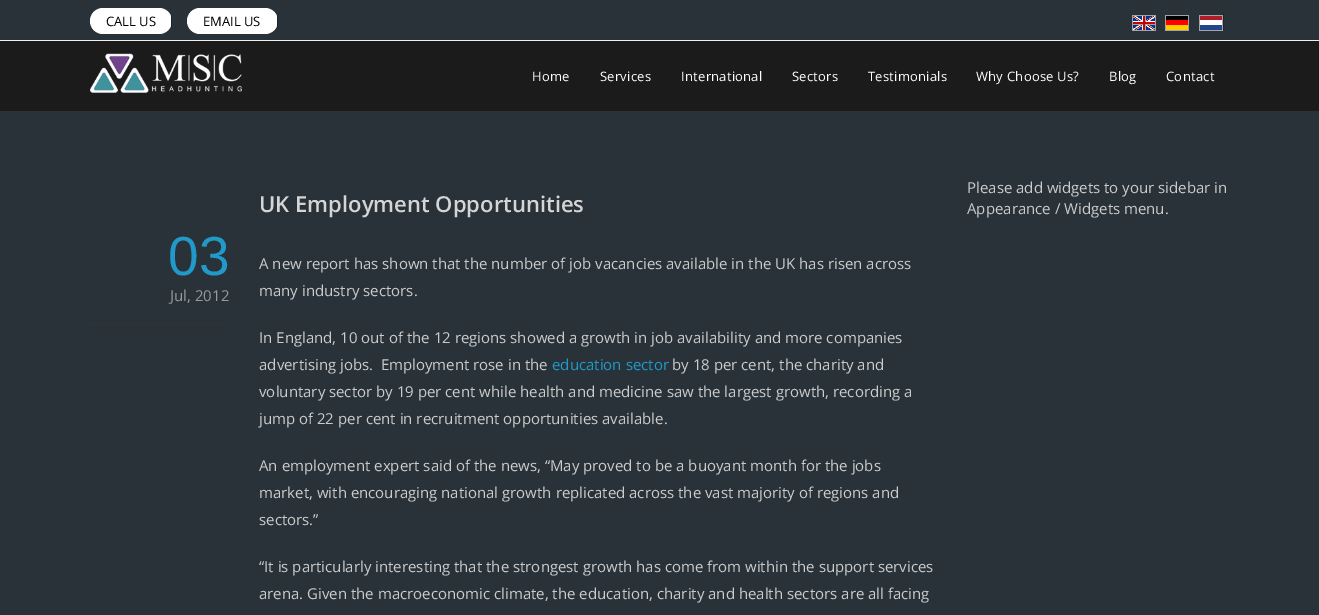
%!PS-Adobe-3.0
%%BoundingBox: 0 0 1319 615
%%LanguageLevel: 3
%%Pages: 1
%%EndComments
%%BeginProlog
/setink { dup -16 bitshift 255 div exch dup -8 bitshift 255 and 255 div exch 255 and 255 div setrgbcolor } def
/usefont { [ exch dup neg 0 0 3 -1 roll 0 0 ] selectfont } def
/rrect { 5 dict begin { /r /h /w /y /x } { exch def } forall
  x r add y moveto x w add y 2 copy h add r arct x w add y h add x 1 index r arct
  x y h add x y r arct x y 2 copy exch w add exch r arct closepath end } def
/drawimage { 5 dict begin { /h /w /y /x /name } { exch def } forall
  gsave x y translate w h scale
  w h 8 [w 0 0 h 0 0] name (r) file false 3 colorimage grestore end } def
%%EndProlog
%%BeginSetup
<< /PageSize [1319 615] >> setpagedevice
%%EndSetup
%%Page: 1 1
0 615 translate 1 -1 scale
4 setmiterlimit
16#293239 setink
0 0 1319 615 rectfill
16#EFEFEF setink
0 40 1319 1 rectfill
16#FFFFFF setink
90 8 82 26 13 rrect fill
/OpenSans-Regular 13 usefont
16#000000 setink
106 26 moveto (CALL US) show
16#242424 setink
171 15 1 13 rectfill
16#FFFFFF setink
187 8 91 26 13 rrect fill
16#000000 setink
203 26 moveto (EMAIL US) show
16#242424 setink
277 15 1 13 rectfill
(img1.raw) 1132 15 24 16 drawimage
(img2.raw) 1165 15 24 16 drawimage
(img3.raw) 1199 15 24 16 drawimage
1223 13 1 17 rectfill
16#1B1B1B setink
0 41 1319 70 rectfill
(img4.raw) 90 53 152 40 drawimage
16#FFFFFF setink
532 81 moveto 0.25 0 (Home) ashow
600 81 moveto 0.25 0 (Services) ashow
681 81 moveto 0.25 0 (International) ashow
792 81 moveto 0.25 0 (Sectors) ashow
868 81 moveto 0.25 0 (Testimonials) ashow
976 81 moveto 0.25 0 (Why Choose Us?) ashow
1109 81 moveto 0.25 0 (Blog) ashow
1166 81 moveto 0.25 0 (Contact) ashow
16#333333 setink
90 323 139 1 rectfill
/LiberationSans-Regular 55 usefont
16#219AC9 setink
168 275 moveto (03) show
/OpenSans-Regular 15 usefont
16#9A9A9A setink
170 301 moveto (Jul, 2012) show
/OpenSans-SemiBold 22 usefont
16#D5D5D5 setink
259 212 moveto (UK Employment Opportunities) show
/OpenSans-Regular 15 usefont
16#CCCCCC setink
[
    [(A new report has shown that the number of job vacancies available in the UK has risen across) 259 269]
    [(many industry sectors.) 259 296]
    [(In England, 10 out of the 12 regions showed a growth in job availability and more companies) 259 343]
    [(advertising jobs.  Employment rose in the) 259 370]
] { aload pop moveto show } forall
16#219AC9 setink
552 370 moveto (education sector) show
16#CCCCCC setink
[
    [(by 18 per cent, the charity and) 672 370]
    [(voluntary sector by 19 per cent while health and medicine saw the largest growth, recording a) 259 397]
    [(jump of 22 per cent in recruitment opportunities available.) 259 424]
    [(An employment expert said of the news, “May proved to be a buoyant month for the jobs) 259 471]
    [(market, with encouraging national growth replicated across the vast majority of regions and) 259 498]
    [(sectors.”) 259 525]
    [(“It is particularly interesting that the strongest growth has come from within the support services) 259 572]
    [(arena. Given the macroeconomic climate, the education, charity and health sectors are all facing) 259 599]
    [(Please add widgets to your sidebar in) 967 193]
    [(Appearance / Widgets menu.) 967 214]
] { aload pop moveto show } forall
showpage
%%EOF
